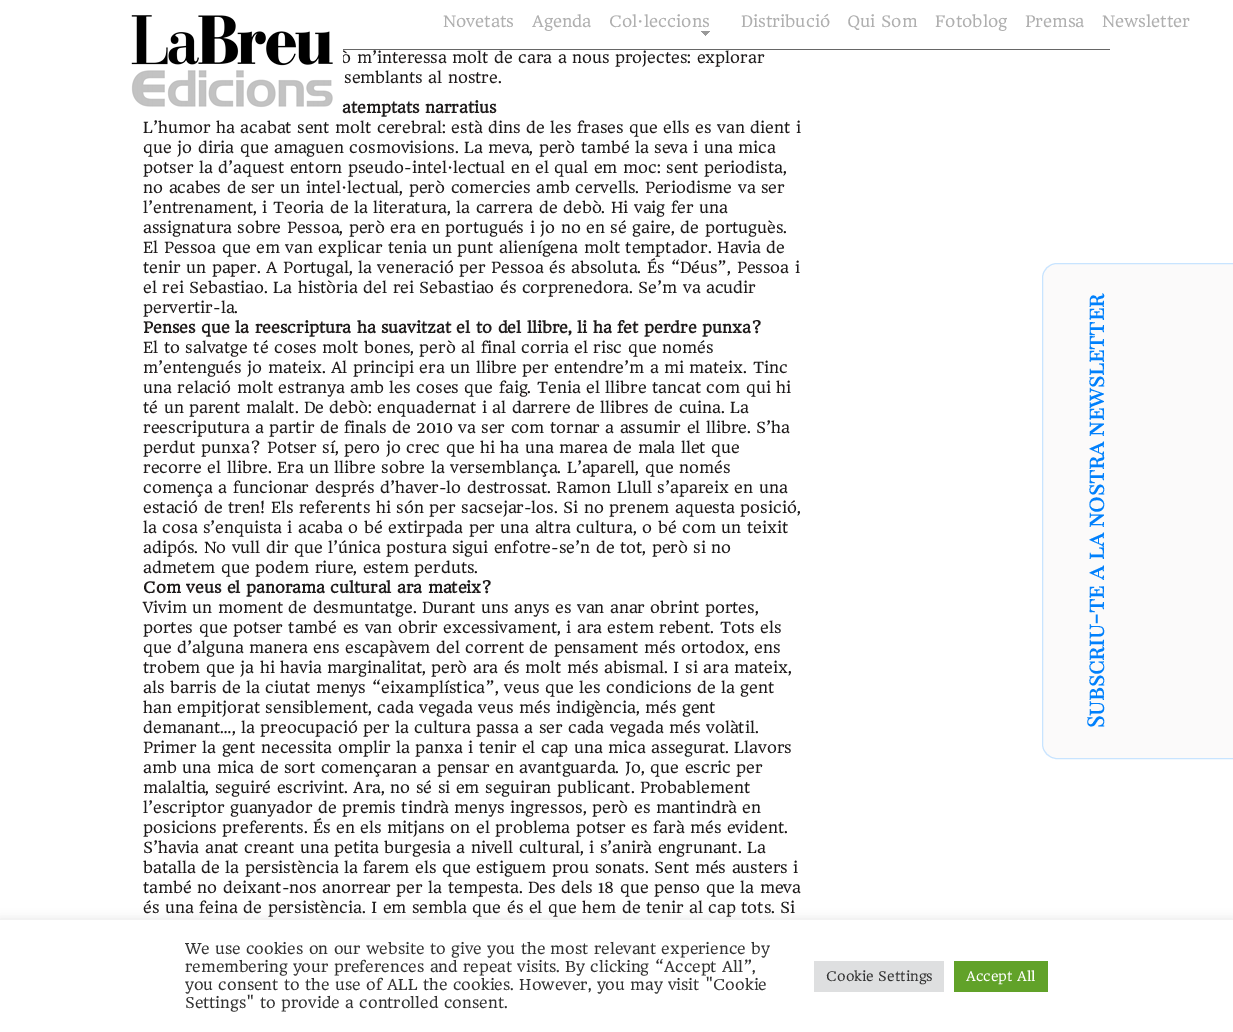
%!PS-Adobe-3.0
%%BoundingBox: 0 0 1233 1032
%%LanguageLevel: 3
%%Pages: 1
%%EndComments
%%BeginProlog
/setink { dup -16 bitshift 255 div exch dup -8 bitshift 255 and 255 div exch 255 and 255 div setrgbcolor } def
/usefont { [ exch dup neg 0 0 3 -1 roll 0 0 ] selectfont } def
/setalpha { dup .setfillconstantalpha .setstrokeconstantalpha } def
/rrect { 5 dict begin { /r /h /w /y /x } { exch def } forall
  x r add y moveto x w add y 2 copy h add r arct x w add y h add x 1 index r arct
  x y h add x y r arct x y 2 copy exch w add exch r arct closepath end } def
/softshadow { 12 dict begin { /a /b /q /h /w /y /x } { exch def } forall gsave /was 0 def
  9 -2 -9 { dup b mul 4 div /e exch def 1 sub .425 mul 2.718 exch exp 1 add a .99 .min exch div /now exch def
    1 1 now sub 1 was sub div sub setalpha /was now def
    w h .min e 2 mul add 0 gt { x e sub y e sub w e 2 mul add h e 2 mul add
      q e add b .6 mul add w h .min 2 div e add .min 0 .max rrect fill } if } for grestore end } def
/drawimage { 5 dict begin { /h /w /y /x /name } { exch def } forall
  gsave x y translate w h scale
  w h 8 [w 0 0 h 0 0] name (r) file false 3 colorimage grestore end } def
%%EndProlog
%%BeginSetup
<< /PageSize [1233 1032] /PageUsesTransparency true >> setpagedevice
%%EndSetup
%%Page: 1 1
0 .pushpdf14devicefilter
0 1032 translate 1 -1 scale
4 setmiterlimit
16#FFFFFF setink
0 0 1233 1032 rectfill
16#666666 setink
343 49 767 1 rectfill
/HeadlandOne-Regular 15 usefont
16#1D1A1A setink
341 63 moveto (ò m’interessa molt de cara a nous projectes: explorar) show
/HeadlandOne-Bold 15 usefont
342 113 moveto (atemptats narratius) show
(img1.raw) 123 15 220 95 drawimage
/HeadlandOne-Regular 15.5 usefont
16#AFAFAF setink
[
    [(Novetats) 443 27]
    [(Agenda) 532 27]
    [(Col·leccions) 609 27]
] { aload pop moveto show } forall
(img2.raw) 701 31 9 5 drawimage
[
    [(Distribució) 741 27]
    [(Qui Som) 847 27]
    [(Fotoblog) 935 27]
    [(Premsa) 1025 27]
    [(Newsletter) 1102 27]
] { aload pop moveto show } forall
/HeadlandOne-Regular 15 usefont
16#1D1A1A setink
[
    [(semblants al nostre.) 344 83]
    [(L’humor ha acabat sent molt cerebral: està dins de les frases que ells es van dient i) 143 133]
    [(que jo diria que amaguen cosmovisions. La meva, però també la seva i una mica) 143 153]
    [(potser la d’aquest entorn pseudo-intel·lectual en el qual em moc: sent periodista,) 143 173]
    [(no acabes de ser un intel·lectual, però comercies amb cervells. Periodisme va ser) 143 193]
    [(l’entrenament, i Teoria de la literatura, la carrera de debò. Hi vaig fer una) 143 213]
    [(assignatura sobre Pessoa, però era en portugués i jo no en sé gaire, de portuguès.) 143 233]
    [(El Pessoa que em van explicar tenia un punt alienígena molt temptador. Havia de) 143 253]
    [(tenir un paper. A Portugal, la veneració per Pessoa és absoluta. És “Déus”, Pessoa i) 143 273]
    [(el rei Sebastiao. La història del rei Sebastiao és corprenedora. Se’m va acudir) 143 293]
    [(pervertir-la.) 143 313]
] { aload pop moveto show } forall
/HeadlandOne-Bold 15 usefont
143 333 moveto (Penses que la reescriptura ha suavitzat el to del llibre, li ha fet perdre punxa?) show
/HeadlandOne-Regular 15 usefont
[
    [(El to salvatge té coses molt bones, però al final corria el risc que només) 143 353]
    [(m’entengués jo mateix. Al principi era un llibre per entendre’m a mi mateix. Tinc) 143 373]
    [(una relació molt estranya amb les coses que faig. Tenia el llibre tancat com qui hi) 143 393]
    [(té un parent malalt. De debò: enquadernat i al darrere de llibres de cuina. La) 143 413]
    [(reescriputura a partir de finals de 2010 va ser com tornar a assumir el llibre. S’ha) 143 433]
    [(perdut punxa? Potser sí, pero jo crec que hi ha una marea de mala llet que) 143 453]
    [(recorre el llibre. Era un llibre sobre la versemblança. L’aparell, que només) 143 473]
    [(comença a funcionar després d’haver-lo destrossat. Ramon Llull s’apareix en una) 143 493]
    [(estació de tren! Els referents hi són per sacsejar-los. Si no prenem aquesta posició,) 143 513]
    [(la cosa s’enquista i acaba o bé extirpada per una altra cultura, o bé com un teixit) 143 533]
    [(adipós. No vull dir que l’única postura sigui enfotre-se’n de tot, però si no) 143 553]
    [(admetem que podem riure, estem perduts.) 143 573]
] { aload pop moveto show } forall
/HeadlandOne-Bold 15 usefont
143 593 moveto (Com veus el panorama cultural ara mateix?) show
/HeadlandOne-Regular 15 usefont
[
    [(Vivim un moment de desmuntatge. Durant uns anys es van anar obrint portes,) 143 613]
    [(portes que potser també es van obrir excessivament, i ara estem rebent. Tots els) 143 633]
    [(que d’alguna manera ens escapàvem del corrent de pensament més ortodox, ens) 143 653]
    [(trobem que ja hi havia marginalitat, però ara és molt més abismal. I si ara mateix,) 143 673]
    [(als barris de la ciutat menys “eixamplística”, veus que les condicions de la gent) 143 693]
    [(han empitjorat sensiblement, cada vegada veus més indigència, més gent) 143 713]
    [(demanant…, la preocupació per la cultura passa a ser cada vegada més volàtil.) 143 733]
    [(Primer la gent necessita omplir la panxa i tenir el cap una mica assegurat. Llavors) 143 753]
    [(amb una mica de sort començaran a pensar en avantguarda. Jo, que escric per) 143 773]
    [(malaltia, seguiré escrivint. Ara, no sé si em seguiran publicant. Probablement) 143 793]
    [(l’escriptor guanyador de premis tindrà menys ingressos, però es mantindrà en) 143 813]
    [(posicions preferents. És en els mitjans on el problema potser es farà més evident.) 143 833]
    [(S’havia anat creant una petita burgesia a nivell cultural, i s’anirà engrunant. La) 143 853]
    [(batalla de la persistència la farem els que estiguem prou sonats. Sent més austers i) 143 873]
    [(també no deixant-nos anorrear per la tempesta. Des dels 18 que penso que la meva) 143 893]
    [(és una feina de persistència. I em sembla que és el que hem de tenir al cap tots. Si) 143 913]
] { aload pop moveto show } forall
16#FBFAFA setink
1042 744 moveto 1042 278 lineto 1042 270 1049 263 1057 263 curveto 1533 263 lineto 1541 263 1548 270 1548 278 curveto 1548 744 lineto 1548 752 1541 759 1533 759 curveto 1057 759 lineto 1049 759 1042 752 1042 744 curveto closepath fill
16#C8E4FF setink
1042.5 744 moveto 1042.5 278 lineto 1042.5 270 1049 263.5 1057 263.5 curveto 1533 263.5 lineto 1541 263.5 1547.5 270 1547.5 278 curveto 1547.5 744 lineto 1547.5 752 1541 758.5 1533 758.5 curveto 1057 758.5 lineto 1049 758.5 1042.5 752 1042.5 744 curveto closepath stroke
/PlayfairDisplaySC-Bold 22.5 usefont
16#0080FC setink
gsave 1104 728 translate -90 rotate 0 0 moveto (Subscriu-te a la nostra newsletter) show grestore
16#ACABAB setink
0 919 1233 112 0 5 0.3 softshadow
16#FFFFFF setink
0 920 1233 112 rectfill
/HeadlandOne-Regular 14.65 usefont
16#333333 setink
[
    [(We use cookies on our website to give you the most relevant experience by) 185 954]
    [(remembering your preferences and repeat visits. By clicking “Accept All”,) 185 972]
    [(you consent to the use of ALL the cookies. However, you may visit "Cookie) 185 990]
    [(Settings" to provide a controlled consent.) 185 1008]
] { aload pop moveto show } forall
16#DEDFE0 setink
814 961 130 31 rectfill
/HeadlandOne-Regular 13 usefont
16#333333 setink
826 981 moveto (Cookie Settings) show
16#61A229 setink
954 961 94 31 rectfill
16#FFFFFF setink
966 981 moveto (Accept All) show
.poppdf14devicefilter showpage
%%EOF
